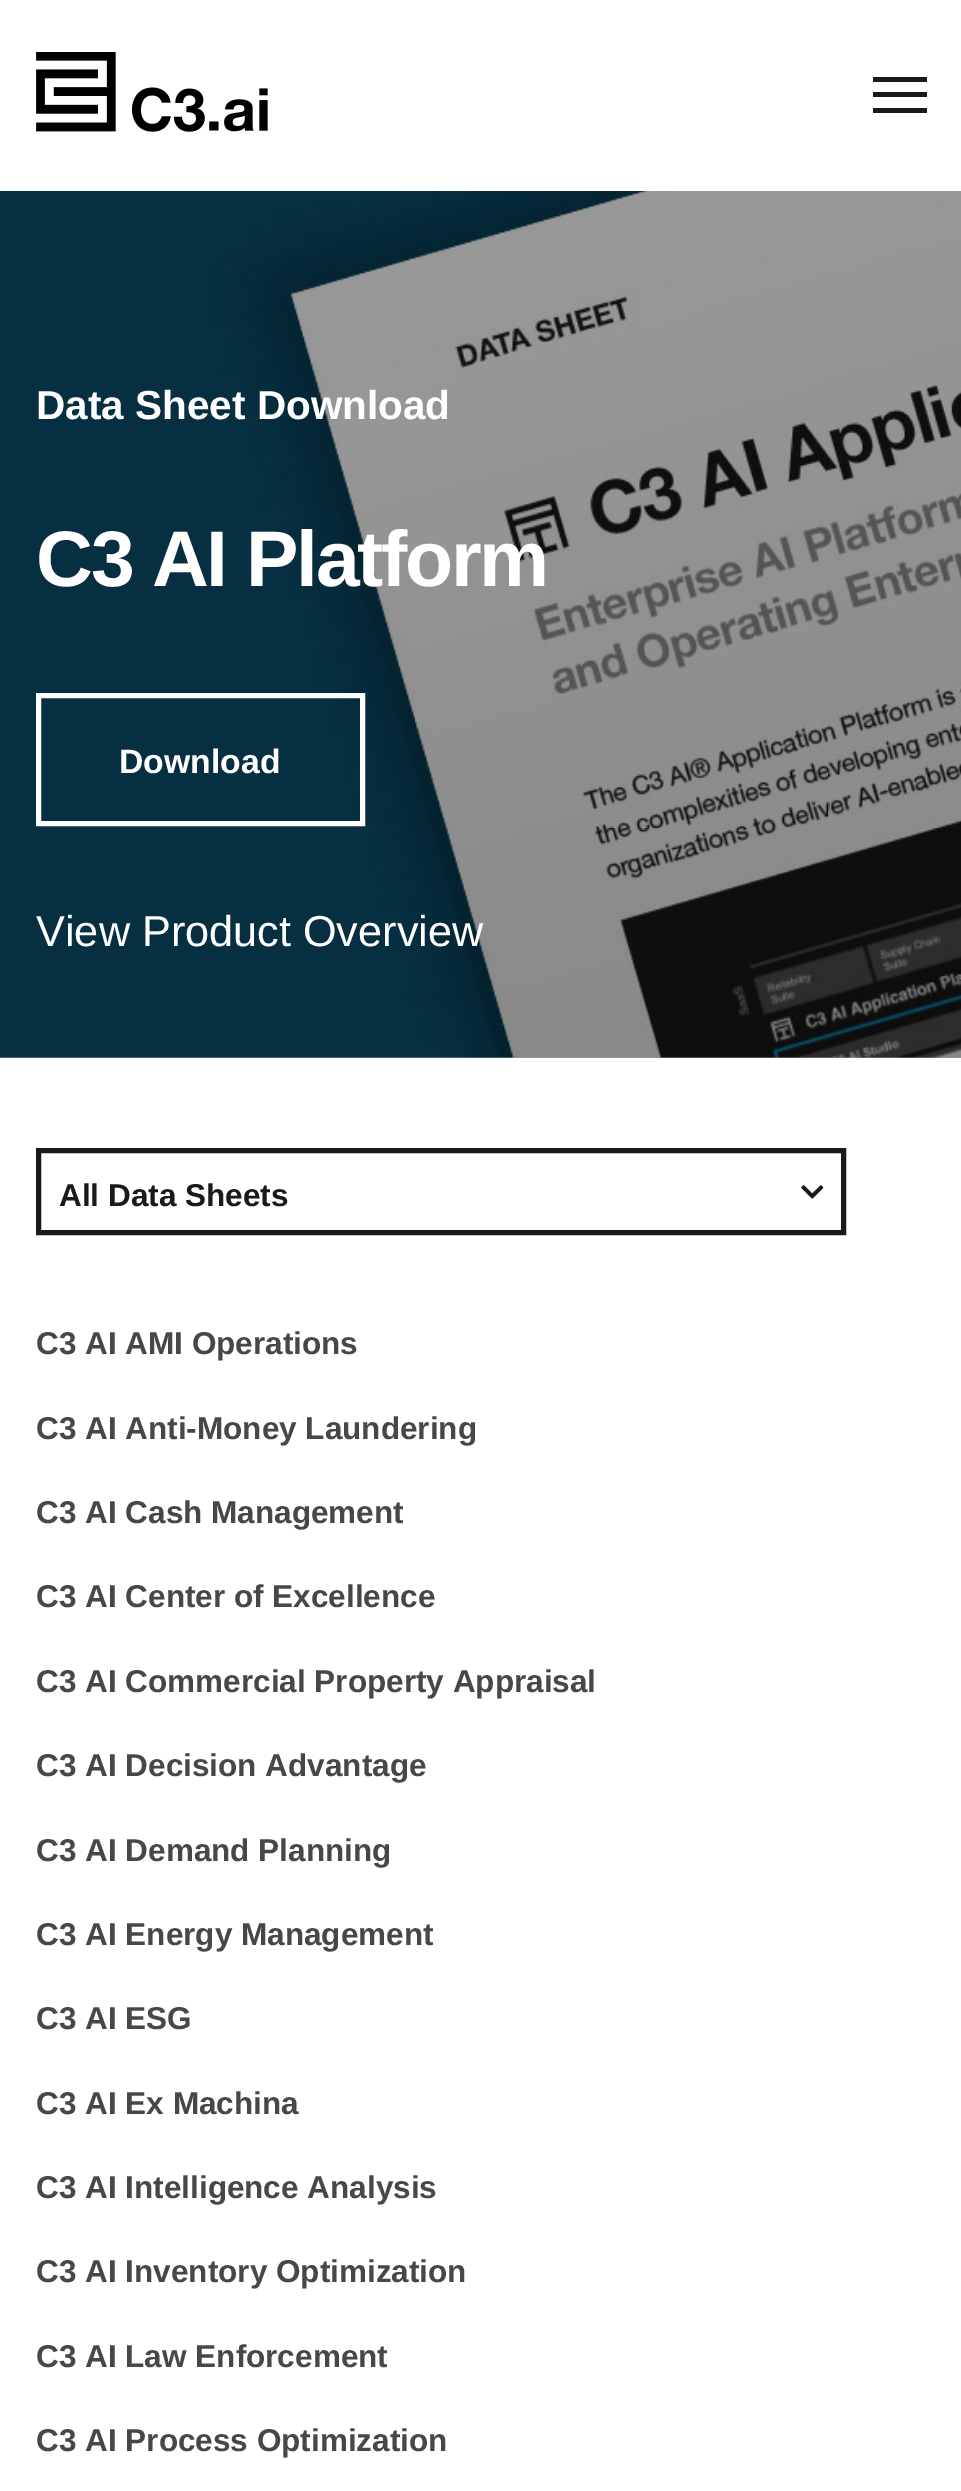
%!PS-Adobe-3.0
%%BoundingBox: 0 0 961 2491
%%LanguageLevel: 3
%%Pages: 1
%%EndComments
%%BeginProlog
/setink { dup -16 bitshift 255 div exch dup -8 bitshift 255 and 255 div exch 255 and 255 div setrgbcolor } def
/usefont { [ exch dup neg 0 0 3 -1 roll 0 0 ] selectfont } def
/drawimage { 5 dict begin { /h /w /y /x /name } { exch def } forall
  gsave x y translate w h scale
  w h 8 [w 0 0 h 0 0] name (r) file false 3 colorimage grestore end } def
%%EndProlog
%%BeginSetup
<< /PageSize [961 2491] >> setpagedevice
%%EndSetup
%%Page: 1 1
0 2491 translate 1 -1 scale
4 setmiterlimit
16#FFFFFF setink
0 0 961 2491 rectfill
16#999999 setink
0 1057 961 1 rectfill
(img1.raw) 36 52 232 80 drawimage
[
    [873 77 54 5 16#1A1A1A]
    [873 92 54 5 16#1A1A1A]
    [873 108 54 5 16#1A1A1A]
] { aload pop setink rectfill } forall
(img2.raw) 0 191 961 867 drawimage
/LiberationSans-Bold 40.5 usefont
16#FFFFFF setink
36 419 moveto (Data Sheet Download) show
/LiberationSans-Bold 78.75 usefont
36 586 moveto -2.25 0 (C3 AI Platform) ashow
5 setlinewidth
38.5 695.5 324 128 rectstroke
/LiberationSans-Bold 33.75 usefont
119 773 moveto (Download) show
/LiberationSans-Regular 43.25 usefont
36 946 moveto (View Product Overview) show
(img3.raw) 801 1185 23 14 drawimage
16#1A1A1A setink
38.5 1150.5 805 82 rectstroke
/LiberationSans-Bold 31.5 usefont
59 1206 moveto (All Data Sheets) show
16#474747 setink
[
    [(C3 AI AMI Operations) 36 1354]
    [(C3 AI Anti-Money Laundering) 36 1439]
    [(C3 AI Cash Management) 36 1523]
    [(C3 AI Center of Excellence) 36 1607]
    [(C3 AI Commercial Property Appraisal) 36 1692]
    [(C3 AI Decision Advantage) 36 1776]
    [(C3 AI Demand Planning) 36 1861]
    [(C3 AI Energy Management) 36 1945]
    [(C3 AI ESG) 36 2029]
    [(C3 AI Ex Machina) 36 2114]
    [(C3 AI Intelligence Analysis) 36 2198]
    [(C3 AI Inventory Optimization) 36 2282]
    [(C3 AI Law Enforcement) 36 2367]
    [(C3 AI Process Optimization) 36 2451]
] { aload pop moveto show } forall
showpage
%%EOF
